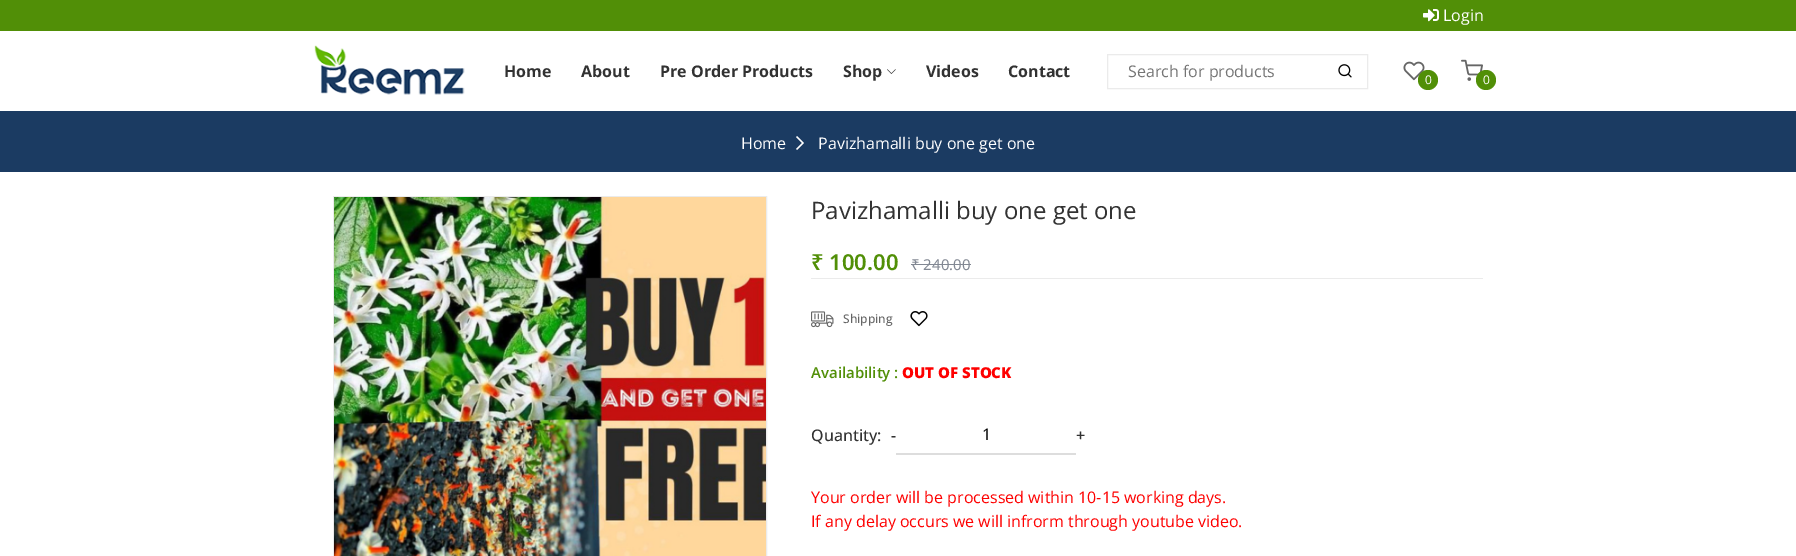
%!PS-Adobe-3.0
%%BoundingBox: 0 0 1796 556
%%LanguageLevel: 3
%%Pages: 1
%%EndComments
%%BeginProlog
/setink { dup -16 bitshift 255 div exch dup -8 bitshift 255 and 255 div exch 255 and 255 div setrgbcolor } def
/usefont { [ exch dup neg 0 0 3 -1 roll 0 0 ] selectfont } def
/disc { newpath 0 360 arc closepath } def
/drawimage { 5 dict begin { /h /w /y /x /name } { exch def } forall
  gsave x y translate w h scale
  w h 8 [w 0 0 h 0 0] name (r) file false 3 colorimage grestore end } def
%%EndProlog
%%BeginSetup
<< /PageSize [1796 556] >> setpagedevice
%%EndSetup
%%Page: 1 1
0 556 translate 1 -1 scale
4 setmiterlimit
16#FFFFFF setink
0 0 1796 556 rectfill
16#518F07 setink
0 0 1796 31 rectfill
(img1.raw) 1423 9 16 13 drawimage
/OpenSans-Regular 16 usefont
16#FFFFFF setink
1443 21 moveto (Login) show
(img2.raw) 314 45 151 50 drawimage
/OpenSans-Bold 16 usefont
16#323232 setink
[
    [(Home) 504 77]
    [(About) 581 77]
    [(Pre Order Products) 660 77]
    [(Shop) 843 77]
] { aload pop moveto show } forall
(img3.raw) 887 69 9 5 drawimage
926 77 moveto (Videos) show
1008 77 moveto (Contact) show
16#EBEBEB setink
1107.5 54.5 260 34 rectstroke
/OpenSans-Regular 16 usefont
16#757575 setink
1128 77 moveto (Search for products) show
(img4.raw) 1338 64 14 14 drawimage
(img5.raw) 1403 61 22 20 drawimage
16#518F07 setink
1428 80 10 disc fill
/OpenSans-Regular 12 usefont
16#FFFFFF setink
1425 84 moveto (0) show
(img6.raw) 1461 59 22 22 drawimage
16#518F07 setink
1486 80 10 disc fill
16#FFFFFF setink
1483 84 moveto (0) show
16#1B3B62 setink
0 111 1796 61 rectfill
/OpenSans-Regular 16 usefont
16#FFFFFF setink
741 149 moveto (Home) show
(img7.raw) 796 136 8 14 drawimage
818 149 moveto (Pavizhamalli buy one get one) show
16#EBEBEB setink
333.5 196.5 433 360 rectstroke
(img8.raw) 334 197 432 359 drawimage
/OpenSans-Regular 24 usefont
16#323232 setink
811 219 moveto (Pavizhamalli buy one get one) show
/NotoSans-SemiBold 22 usefont
16#518F07 setink
811 270 moveto (₹ 100.00) show
/NotoSans-Regular 15 usefont
16#828893 setink
911 270 moveto (₹ 240.00) show
911 264 60 1 rectfill
16#EBEBEB setink
811 278 672 1 rectfill
(img9.raw) 811 311 23 17 drawimage
/OpenSans-Medium 12 usefont
16#666666 setink
843 323 moveto (Shipping) show
(img10.raw) 910 311 18 16 drawimage
/OpenSans-SemiBold 15 usefont
16#518F07 setink
811 378 moveto (Availability :) show
/OpenSans-ExtraBold 15 usefont
16#FE0000 setink
902 378 moveto (OUT OF STOCK) show
/OpenSans-Medium 16 usefont
16#323232 setink
811 441 moveto (Quantity:) show
/OpenSans-SemiBold 16 usefont
891 441 moveto (-) show
16#DDDDDD setink
896 453 180 2 rectfill
/OpenSans-Regular 16 usefont
16#000000 setink
982 440 moveto (1) show
/OpenSans-SemiBold 16 usefont
16#323232 setink
1076 441 moveto (+) show
/OpenSans-Regular 16 usefont
16#FE0000 setink
811 503 moveto (Your order will be processed within 10-15 working days.) show
811 527 moveto (If any delay occurs we will infrorm through youtube video.) show
showpage
%%EOF
